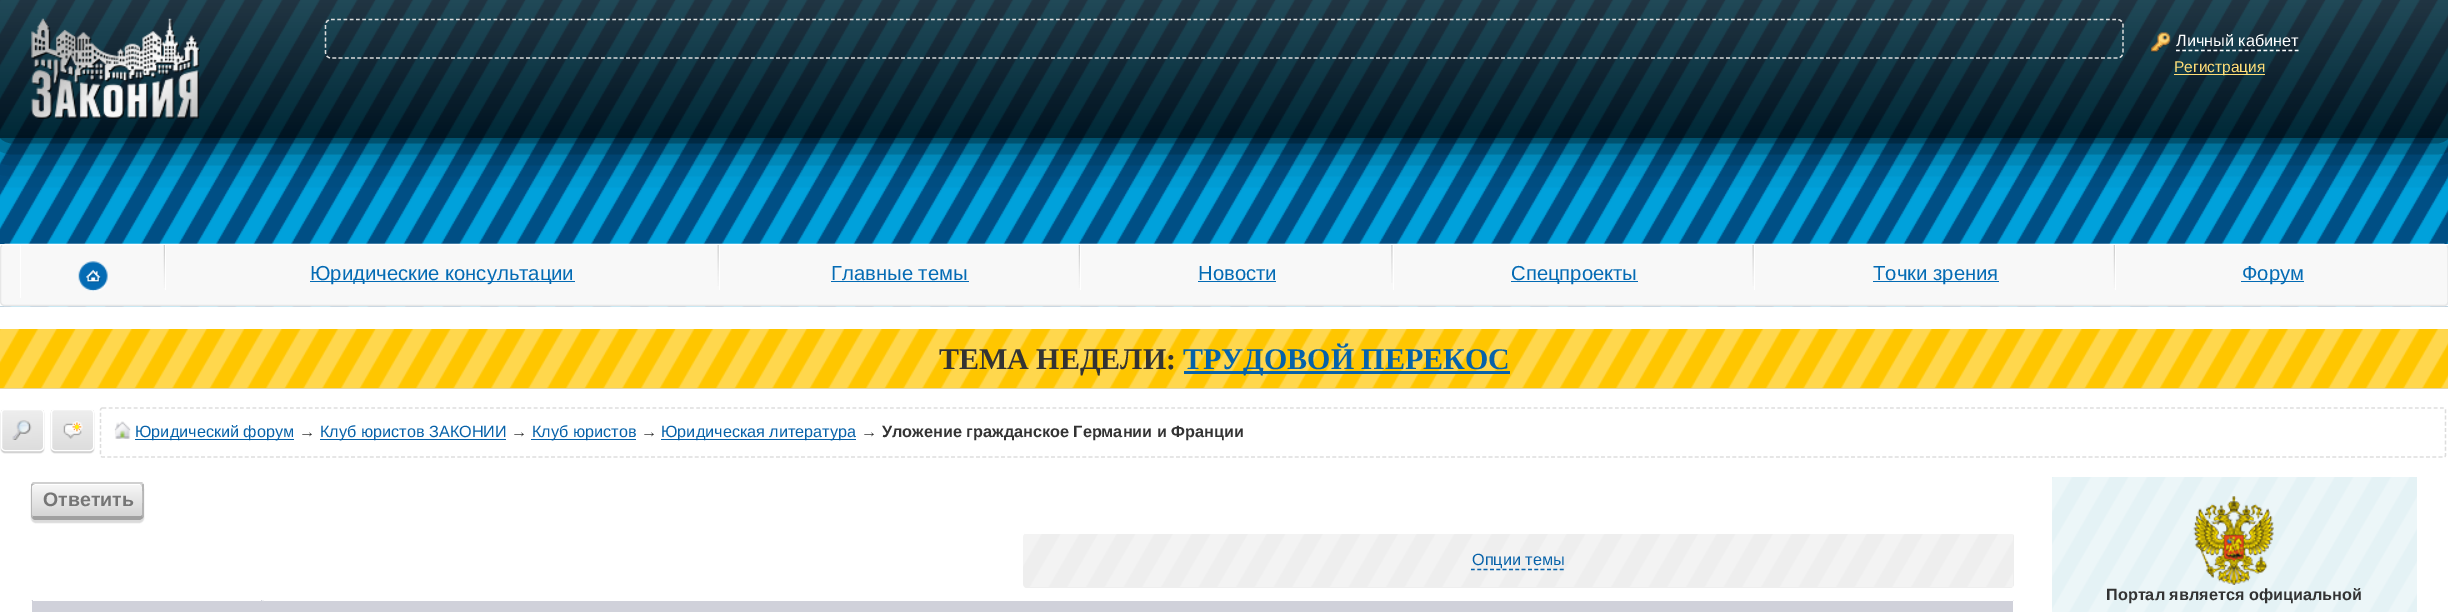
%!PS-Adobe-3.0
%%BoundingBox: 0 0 2448 612
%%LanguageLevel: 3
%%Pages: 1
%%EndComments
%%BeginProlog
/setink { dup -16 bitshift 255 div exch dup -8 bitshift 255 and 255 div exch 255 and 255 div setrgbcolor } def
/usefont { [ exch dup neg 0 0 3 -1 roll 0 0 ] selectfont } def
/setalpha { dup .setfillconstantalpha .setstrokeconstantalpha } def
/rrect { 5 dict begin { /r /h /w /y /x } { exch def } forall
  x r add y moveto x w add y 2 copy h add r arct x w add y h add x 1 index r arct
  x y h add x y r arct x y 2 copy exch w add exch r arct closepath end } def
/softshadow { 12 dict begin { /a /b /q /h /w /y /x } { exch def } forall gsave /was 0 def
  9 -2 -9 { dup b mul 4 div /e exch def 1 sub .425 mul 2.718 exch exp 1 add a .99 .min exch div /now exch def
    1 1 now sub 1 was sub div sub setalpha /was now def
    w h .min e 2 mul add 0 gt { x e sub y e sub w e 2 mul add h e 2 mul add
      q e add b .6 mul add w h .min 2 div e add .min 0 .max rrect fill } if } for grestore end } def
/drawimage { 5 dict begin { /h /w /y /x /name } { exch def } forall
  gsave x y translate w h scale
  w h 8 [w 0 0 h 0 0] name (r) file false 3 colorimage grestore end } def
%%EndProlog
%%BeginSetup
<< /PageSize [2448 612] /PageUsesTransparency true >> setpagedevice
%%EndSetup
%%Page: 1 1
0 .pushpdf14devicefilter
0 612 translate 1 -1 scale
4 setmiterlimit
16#FFFFFF setink
0 0 2448 612 rectfill
(img1.raw) 0 0 2448 307 drawimage
gsave
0 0 moveto 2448 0 lineto 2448 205 lineto 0 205 lineto closepath 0 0 moveto 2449 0 lineto 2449 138 lineto 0 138 lineto closepath eoclip newpath
16#000000 setink
0 0 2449 138 0 22 1 softshadow
grestore
0.75 setalpha
gsave 0 0 moveto 2448 0 lineto 2448 138 lineto 0 138 lineto closepath clip newpath
<< /ShadingType 2 /ColorSpace /DeviceRGB /Coords [1224 0 1224 138] /Extend [true true] /Function << /FunctionType 2 /Domain [0 1] /C0 [0.173 0.173 0.173] /C1 [0 0 0] /N 1 >> >> shfill grestore
1 setalpha
(img2.raw) 31 18 169 101 drawimage
16#DDDDDD setink
1.2 setlinewidth
[3.75 2.5] 0 setdash
331 19.5 moveto 2117.5 19.5 lineto 2120.5 19.5 2123 22 2123 25 curveto 2123 52.5 lineto 2123 55.5 2120.5 58 2117.5 58 curveto 331 58 lineto 328 58 325.5 55.5 325.5 52.5 curveto 325.5 25 lineto 325.5 22 328 19.5 331 19.5 curveto closepath stroke
(img3.raw) 2151 32 20 21 drawimage
/LiberationSans-Regular 16.25 usefont
16#FFFFFF setink
2176 46 moveto (Личный кабинет) show
2176 50.5 moveto 2299 50.5 lineto stroke
16#FFDD77 setink
2174 74 91 1 rectfill
/LiberationSans-Regular 15.5 usefont
2174 72 moveto (Регистрация) show
16#FFFFFF setink
0 244 2448 62 rectfill
16#F8F8F8 setink
0 244 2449 62 5 rrect fill
16#FFFFFF setink
[] 0 setdash
2 245.5 moveto 5 244.5 lineto 2444 244.5 lineto 2447 245.5 lineto stroke
16#E7E7E7 setink
2447 245.5 moveto 2447.5 246.5 2448 247.5 2448 249 curveto 2448 301 lineto 2448 302.5 2447.5 303.5 2447 304.5 curveto 2446 305 2445 305.5 2444 305.5 curveto 5 305.5 lineto 4 305.5 2.5 305 2 304.5 curveto 1 303.5 0.5 302.5 0.5 301 curveto 0.5 249 lineto 0.5 247.5 1 246.5 2 245.5 curveto stroke
(img4.raw) 163 245 2 43 drawimage
16#FFFFFF setink
20 245 1 53 rectfill
(img5.raw) 78 261 30 31 drawimage
(img6.raw) 717 245 2 41 drawimage
165 245 1 45 rectfill
16#046BB4 setink
310 281 265 1 rectfill
/LiberationSans-Regular 20.25 usefont
310 280 moveto (Юридические консультации) show
(img4.raw) 1078 245 2 43 drawimage
16#FFFFFF setink
719 245 1 45 rectfill
16#046BB4 setink
831 280 moveto (Главные темы) show
831 281 138 1 rectfill
(img7.raw) 1391 245 2 38 drawimage
16#FFFFFF setink
1080 245 1 45 rectfill
16#046BB4 setink
1198 280 moveto (Новости) show
1198 281 78 1 rectfill
(img8.raw) 1752 245 2 41 drawimage
16#FFFFFF setink
1393 245 1 45 rectfill
16#046BB4 setink
1511 281 127 1 rectfill
1511 280 moveto (Спецпроекты) show
(img4.raw) 2113 245 2 43 drawimage
16#FFFFFF setink
1754 245 1 45 rectfill
16#046BB4 setink
1873 281 126 1 rectfill
1873 280 moveto (Точки зрения) show
16#FFFFFF setink
2115 245 1 45 rectfill
16#046BB4 setink
2241 281 63 1 rectfill
2242 280 moveto (Форум) show
16#FFC600 setink
0 329 2448 59 rectfill
(img9.raw) 0 329 2448 59 drawimage
16#E4D6A5 setink
0 388 2448 1 rectfill
/LiberationSerif-Bold 30 usefont
16#333333 setink
939 369 moveto (ТЕМА НЕДЕЛИ:) show
16#0762A9 setink
1184 371 326 3 rectfill
1183 369 moveto (ТРУДОВОЙ ПЕРЕКОС) show
16#DDDDDD setink
[3.75 2.5] 0 setdash
102.5 408 moveto 2444 408 lineto 2445 408 2445.5 409 2445.5 410 curveto 2445.5 455 lineto 2445.5 456 2445 457 2444 457 curveto 102.5 457 lineto 101.5 457 100.5 456 100.5 455 curveto 100.5 410 lineto 100.5 409 101.5 408 102.5 408 curveto closepath stroke
16#CCCCCC setink
1 410 43 43 4 0.5 1 softshadow
gsave
1 409 43 42 4 rrect clip newpath
gsave 1 410 moveto 44 410 lineto 44 450 lineto 1 450 lineto closepath clip newpath
<< /ShadingType 2 /ColorSpace /DeviceRGB /Coords [22 410 23 450] /Extend [true true] /Function << /FunctionType 2 /Domain [0 1] /C0 [0.933 0.933 0.933] /C1 [0.867 0.867 0.867] /N 1 >> >> shfill grestore
grestore
16#FFFFFF setink
1 setlinewidth
[] 0 setdash
1.5 409.5 42 41 3.5 rrect stroke
(img10.raw) 12 420 20 20 drawimage
16#CCCCCC setink
51 410 43 43 4 0.5 1 softshadow
gsave
51 409 43 42 4 rrect clip newpath
gsave 51 410 moveto 94 410 lineto 94 450 lineto 51 450 lineto closepath clip newpath
<< /ShadingType 2 /ColorSpace /DeviceRGB /Coords [73 410 73 450] /Extend [true true] /Function << /FunctionType 2 /Domain [0 1] /C0 [0.933 0.933 0.933] /C1 [0.867 0.867 0.867] /N 1 >> >> shfill grestore
grestore
16#FFFFFF setink
51.5 409.5 42 41 3.5 rrect stroke
(img11.raw) 63 421 20 18 drawimage
(img12.raw) 114 421 17 18 drawimage
16#0762A9 setink
135 439 159 1 rectfill
/LiberationSans-Regular 16.25 usefont
135 437 moveto (Юридический форум) show
16#333333 setink
299 437 moveto (→) show
16#0762A9 setink
320 439 186 1 rectfill
320 437 moveto (Клуб юристов ЗАКОНИИ) show
16#333333 setink
511 437 moveto (→) show
16#0762A9 setink
531 439 105 1 rectfill
532 437 moveto (Клуб юристов) show
16#333333 setink
641 437 moveto (→) show
16#0762A9 setink
661 439 195 1 rectfill
661 437 moveto (Юридическая литература) show
16#333333 setink
861 437 moveto (→) show
/LiberationSans-Bold 16.25 usefont
882 437 moveto (Уложение гражданское Германии и Франции) show
16#DADADA setink
31 485 113 38 5 0.5 1 softshadow
gsave 35 484 moveto 140 484 lineto 141 484 142 485 142 486 curveto 142 515 lineto 142 516 141 516 139 516 curveto 36 516 lineto 34 516 32 516 32 515 curveto 32 486 lineto 32 485 34 484 35 484 curveto closepath clip newpath
<< /ShadingType 2 /ColorSpace /DeviceRGB /Coords [88 484 88 516] /Extend [true true] /Function << /FunctionType 2 /Domain [0 1] /C0 [0.969 0.969 0.969] /C1 [0.835 0.835 0.835] /N 1 >> >> shfill grestore
16#FFFFFF setink
35 485 moveto 140 485 lineto 141 485 142 486 142 488 curveto 142 516 lineto 142 515 lineto 142 486 lineto 142 485 141 484 140 484 curveto 35 484 lineto 34 484 32 485 32 486 curveto closepath fill
16#D0D0D0 setink
35 484 moveto 33 485 lineto 32 483 lineto 33 482 lineto 142 482 lineto 143 483 lineto 141 485 lineto 140 484 lineto closepath fill
16#B5B5B5 setink
144 516.5 moveto 143 518 lineto 142 515 lineto 142 510.5 143 486.5 141.5 485 curveto 143 483.5 lineto 144 484.5 lineto closepath fill
16#A0A0A0 setink
36 520 moveto 140 520 lineto 143 518 lineto 142 515 lineto 141 516 lineto 33 516 lineto 32 518 lineto 33 519 34 520 36 520 curveto closepath fill
16#B5B5B5 setink
31 484.5 moveto 32 483.5 lineto 33.5 484.5 lineto 32 486 lineto 32 515 lineto 32.5 515.5 lineto 32 518 lineto 31 516.5 lineto closepath fill
/LiberationSans-Bold 19.5 usefont
16#757575 setink
43 506 moveto (Ответить) show
16#EEEEEE setink
1023 533 991 55 4 rrect fill
(img13.raw) 1023 533 990 54 drawimage
16#FFFFFF setink
1025 533 988 1 rectfill
16#0762A9 setink
1.2 setlinewidth
[3.75 2.59] 0 setdash
1471 569.5 moveto 1564 569.5 lineto stroke
/LiberationSans-Regular 16.25 usefont
1472 565 moveto (Опции темы) show
16#D0D1DA setink
31 600 232 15 2.5 rrect fill
16#FFFFFF setink
33 600 228 1 rectfill
31 601 1 11 rectfill
16#D0D1DA setink
263 600 1751 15 2.5 rrect fill
[
    [264 600 1749 1 16#FFFFFF]
    [2013 601 1 11 16#FFFFFF]
    [2052 477 365 135 16#E4F2F5]
] { aload pop setink rectfill } forall
(img14.raw) 2052 477 365 135 drawimage
(img15.raw) 2193 496 81 89 drawimage
/LiberationSans-Bold 16.25 usefont
16#333333 setink
2106 600 moveto (Портал является официальной) show
.poppdf14devicefilter showpage
%%EOF
